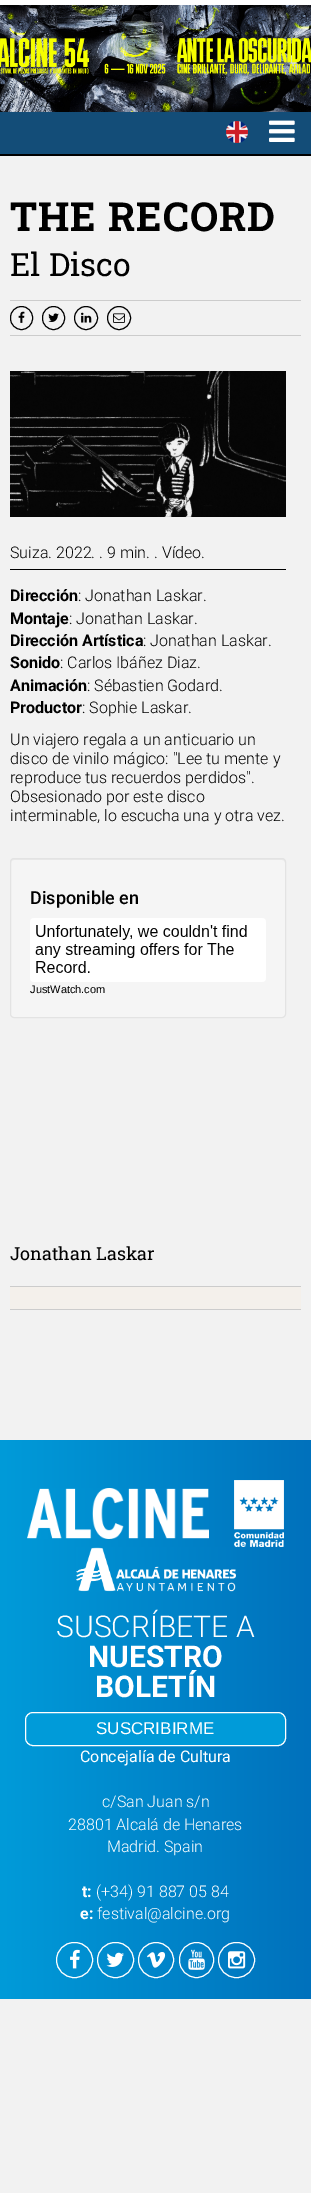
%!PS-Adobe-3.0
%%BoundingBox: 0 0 311 2193
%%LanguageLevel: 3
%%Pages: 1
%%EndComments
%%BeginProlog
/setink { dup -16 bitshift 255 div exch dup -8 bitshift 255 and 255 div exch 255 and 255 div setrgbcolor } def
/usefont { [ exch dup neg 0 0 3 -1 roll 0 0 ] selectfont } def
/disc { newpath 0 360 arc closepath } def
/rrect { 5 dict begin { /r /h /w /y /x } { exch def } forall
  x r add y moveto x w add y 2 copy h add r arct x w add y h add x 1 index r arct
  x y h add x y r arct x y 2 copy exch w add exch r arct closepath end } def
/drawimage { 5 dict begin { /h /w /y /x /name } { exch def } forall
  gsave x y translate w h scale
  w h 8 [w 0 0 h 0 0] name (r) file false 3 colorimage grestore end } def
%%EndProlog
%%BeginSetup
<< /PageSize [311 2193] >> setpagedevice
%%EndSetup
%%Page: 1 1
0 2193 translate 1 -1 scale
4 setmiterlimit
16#F2F2F2 setink
0 0 311 2193 rectfill
16#134D78 setink
0 112 311 42 rectfill
(img1.raw) 0 5 311 107 drawimage
16#FFFFFF setink
0 0 311 5 rectfill
16#000000 setink
0 154 311 2 rectfill
(img2.raw) 226 121 22 22 drawimage
(img3.raw) 269 120 26 22 drawimage
/RobotoSlab-Bold 40 usefont
10 231 moveto 1 0 (THE RECORD) ashow
/RobotoSlab-Regular 32 usefont
10 276 moveto (El Disco) show
16#CCCCCC setink
10 300 291 1 rectfill
10 335 291 1 rectfill
16#000000 setink
10.5 306.5 22 23 11 rrect stroke
(img4.raw) 18 311 7 12 drawimage
42.5 306.5 22 23 11 rrect stroke
(img5.raw) 48 313 11 9 drawimage
86 318 11.5 disc stroke
(img6.raw) 81 312 11 11 drawimage
119 318 11.5 disc stroke
(img7.raw) 113 313 12 10 drawimage
(img8.raw) 10 371 276 146 drawimage
10 569 276 1 rectfill
/Roboto-Light 16 usefont
10 558 moveto (Suiza. 2022. . 9 min. . Vídeo.) show
/Roboto-Bold 16 usefont
10 601 moveto (Dirección) show
/Roboto-Light 16 usefont
78 601 moveto (: Jonathan Laskar.) show
/Roboto-Bold 16 usefont
10 624 moveto (Montaje) show
/Roboto-Light 16 usefont
69 624 moveto (: Jonathan Laskar.) show
/Roboto-Bold 16 usefont
10 646 moveto (Dirección Artística) show
/Roboto-Light 16 usefont
143 646 moveto (: Jonathan Laskar.) show
/Roboto-Bold 16 usefont
10 668 moveto (Sonido) show
/Roboto-Light 16 usefont
60 668 moveto (: Carlos Ibáñez Diaz.) show
/Roboto-Bold 16 usefont
10 691 moveto (Animación) show
/Roboto-Light 16 usefont
87 691 moveto (: Sébastien Godard.) show
/Roboto-Bold 16 usefont
10 713 moveto (Productor) show
/Roboto-Light 16 usefont
[
    [(: Sophie Laskar.) 82 713]
    [(Un viajero regala a un anticuario un) 10 745]
    [(disco de vinilo mágico: "Lee tu mente y) 10 764]
    [(reproduce tus recuerdos perdidos".) 10 783]
    [(Obsesionado por este disco) 10 802]
    [(interminable, lo escucha una y otra vez.) 10 821]
] { aload pop moveto show } forall
16#F5F5F5 setink
10 858 276 160 4 rrect fill
16#E9E9E9 setink
14 860 moveto 282 860 lineto 284 860 285 861 285 863 curveto 285 862 lineto 285 860 284 859 282 859 curveto 14 859 lineto 12 859 11 860 11 862 curveto 11 863 lineto 11 861 12 860 14 860 curveto closepath fill
16#E3E3E3 setink
10.5 858.5 275 159 3.5 rrect stroke
/Roboto-Medium 18 usefont
16#000000 setink
30 904 moveto (Disponible en) show
(img9.raw) 30 918 236 64 drawimage
/LiberationSans-Regular 11 usefont
30 993 moveto (JustWatch.com) show
/RobotoSlab-Regular 18 usefont
10 1260 moveto (Jonathan Laskar) show
[
    [10 1287 291 22 16#F4F0EB]
    [10 1286 291 1 16#CCCCCC]
    [10 1309 291 1 16#CCCCCC]
] { aload pop setink rectfill } forall
gsave 0 1440 moveto 311 1440 lineto 311 1999 lineto 0 1999 lineto closepath clip newpath
<< /ShadingType 2 /ColorSpace /DeviceRGB /Coords [0 1720 311 1720] /Extend [true true] /Function << /FunctionType 2 /Domain [0 1] /C0 [0 0.608 0.851] /C1 [0 0.443 0.737] /N 1 >> >> shfill grestore
(img10.raw) 27 1488 182 51 drawimage
(img11.raw) 234 1480 50 67 drawimage
(img12.raw) 76 1547 160 45 drawimage
/Roboto-Light 30 usefont
16#FFFFFF setink
56 1637 moveto (SUSCRÍBETE A) show
/Roboto-Bold 30 usefont
88 1667 moveto (NUESTRO) show
95 1697 moveto (BOLETÍN) show
16#009BD9 setink
25.5 1712.5 260 33 7.5 rrect gsave fill grestore
16#FFFFFF setink
stroke
/LiberationSans-Regular 17 usefont
96 1734 moveto (SUSCRIBIRME) show
/Roboto-Regular 16 usefont
80 1762 moveto (Concejalía de Cultura) show
/Roboto-Light 16 usefont
[
    [(c/San Juan s/n) 102 1807]
    [(28801 Alcalá de Henares) 68 1830]
    [(Madrid. Spain) 107 1852]
] { aload pop moveto show } forall
/Roboto-Bold 16 usefont
82 1897 moveto (t:) show
/Roboto-Light 16 usefont
96 1897 moveto (\(+34\) 91 887 05 84) show
/Roboto-Bold 16 usefont
80 1919 moveto (e:) show
/Roboto-Light 16 usefont
97 1919 moveto (festival@alcine.org) show
56.5 1942.5 36 35 17.5 rrect stroke
(img13.raw) 70 1949 10 20 drawimage
97.5 1942.5 36 35 17.5 rrect stroke
(img14.raw) 106 1952 18 15 drawimage
156 1960 17.5 disc stroke
(img15.raw) 147 1952 19 16 drawimage
179.5 1942.5 34 35 17 rrect stroke
(img16.raw) 188 1949 17 21 drawimage
218.5 1942.5 36 35 17.5 rrect stroke
(img17.raw) 228 1951 18 18 drawimage
showpage
%%EOF
